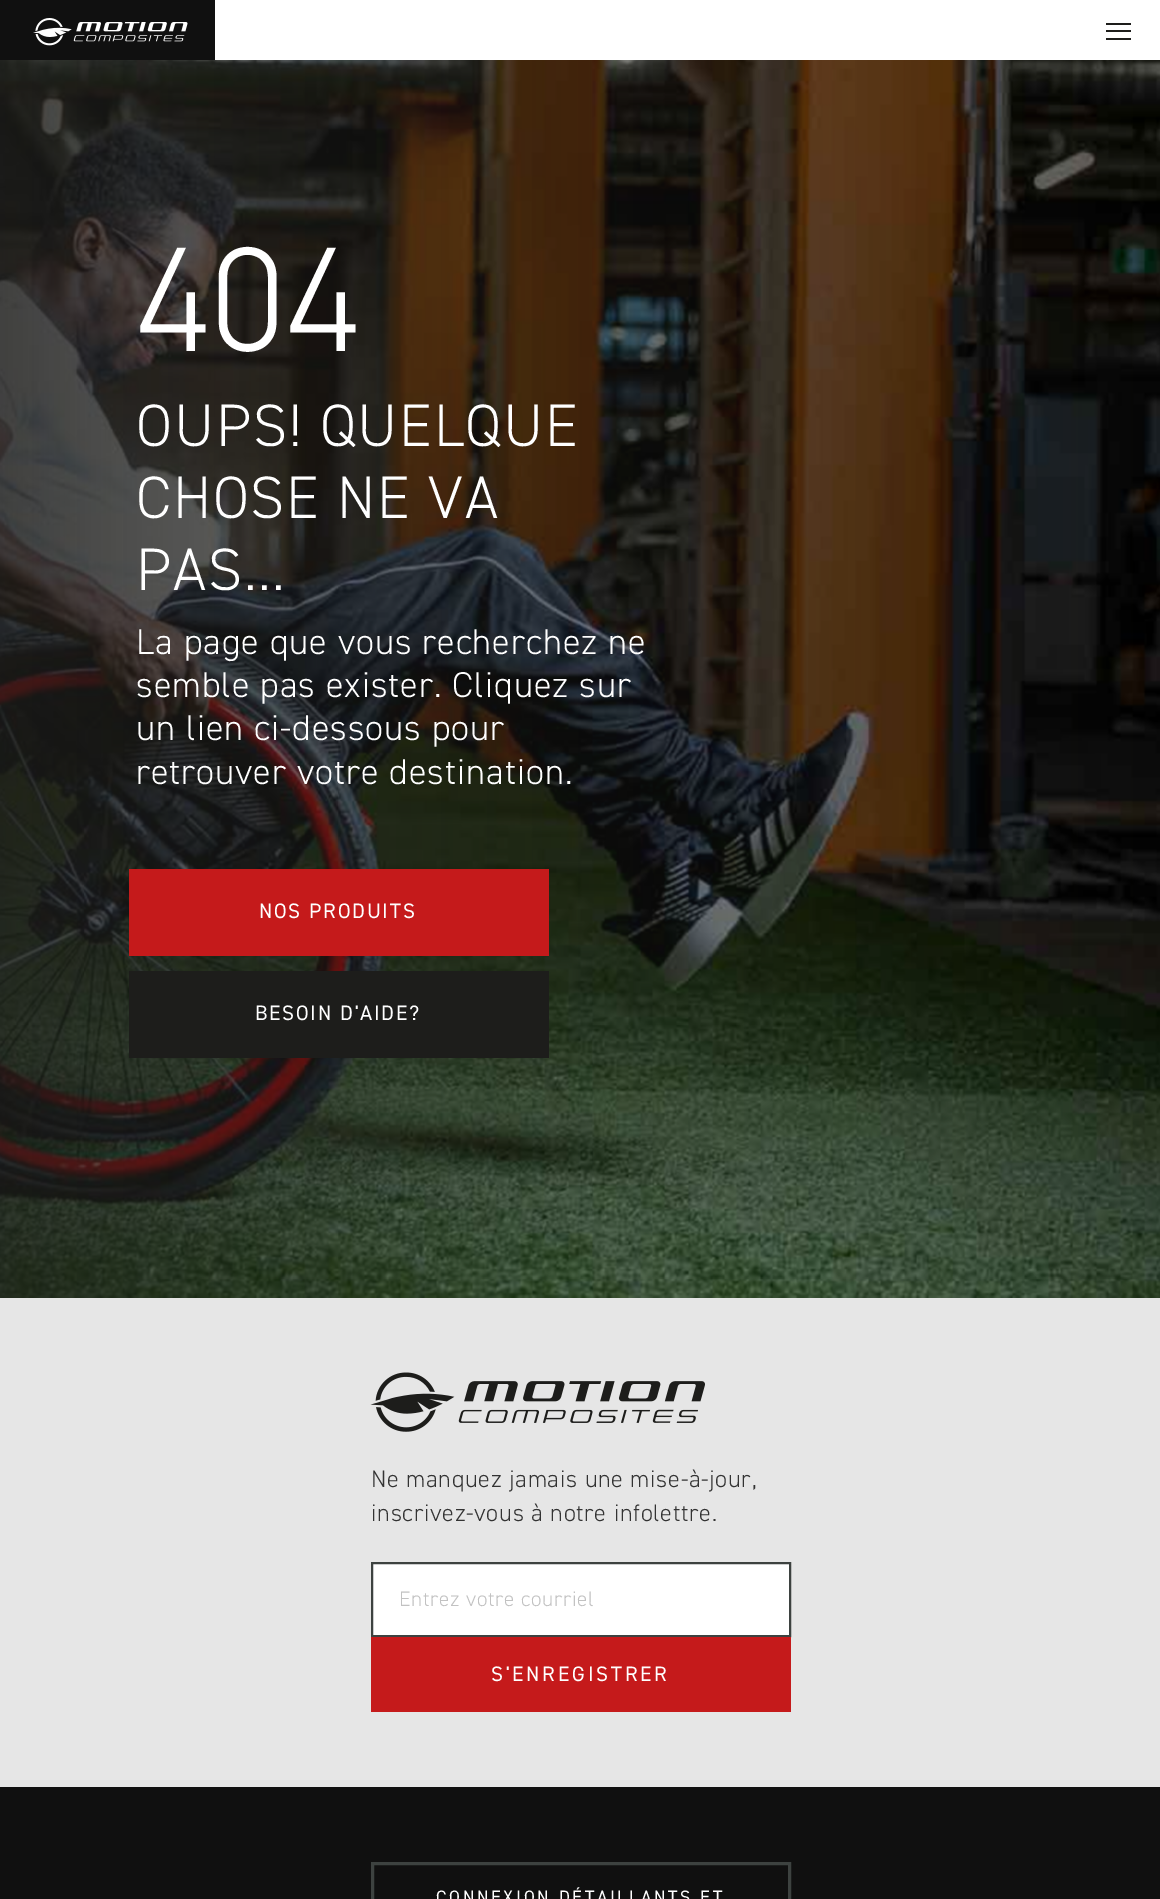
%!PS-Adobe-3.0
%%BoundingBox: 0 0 1160 1899
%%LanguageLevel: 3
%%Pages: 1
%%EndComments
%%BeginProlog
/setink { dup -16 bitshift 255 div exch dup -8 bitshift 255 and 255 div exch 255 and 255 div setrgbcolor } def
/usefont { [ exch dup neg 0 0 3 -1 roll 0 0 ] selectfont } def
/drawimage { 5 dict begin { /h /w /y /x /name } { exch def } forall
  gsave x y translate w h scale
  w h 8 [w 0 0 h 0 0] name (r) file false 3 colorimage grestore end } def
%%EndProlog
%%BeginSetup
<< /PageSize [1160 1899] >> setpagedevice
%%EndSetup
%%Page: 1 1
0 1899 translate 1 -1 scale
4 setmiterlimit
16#FFFFFF setink
0 0 1160 1899 rectfill
16#101010 setink
0 0 215 60 rectfill
(img1.raw) 33 18 155 28 drawimage
[
    [1106 23 25 2 16#1D1D1B]
    [1106 30 25 2 16#1D1D1B]
    [1106 38 25 2 16#1D1D1B]
] { aload pop setink rectfill } forall
(img2.raw) 0 60 1160 1238 drawimage
/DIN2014-Light 150 usefont
16#FFFFFF setink
136 351 moveto 1.5 0 (404) ashow
/DIN2014-Light 60 usefont
136 446 moveto 1.75 0 (OUPS! QUELQUE) ashow
136 518 moveto 1.75 0 (CHOSE NE VA) ashow
136 590 moveto 1.75 0 (PAS...) ashow
/DIN2014-Light 36 usefont
136 654 moveto 1 0 (La page que vous recherchez ne) ashow
136 697 moveto 1 0 (semble pas exister. Cliquez sur) ashow
136 740 moveto 1 0 (un lien ci-dessous pour) ashow
136 784 moveto 1 0 (retrouver votre destination.) ashow
16#C51A1B setink
129 869 420 87 rectfill
/DIN2014-Regular 21 usefont
16#FFFFFF setink
259 918 moveto 1.75 0 (NOS PRODUITS) ashow
16#1D1D1B setink
129 971 420 87 rectfill
16#FFFFFF setink
255 1020 moveto 1.75 0 (BESOIN D'AIDE?) ashow
16#E6E6E6 setink
0 1298 1160 489 rectfill
(img3.raw) 370 1372 335 60 drawimage
/DIN2014-Light 24 usefont
16#333333 setink
371 1487 moveto 0.75 0 (Ne manquez jamais une mise-à-jour,) ashow
371 1521 moveto 0.75 0 (inscrivez-vous à notre infolettre.) ashow
16#FFFFFF setink
372 1563 moveto 790 1563 lineto 790 1636 lineto 372 1636 lineto closepath gsave fill grestore
16#3D4240 setink
2 setlinewidth
stroke
/DIN2014-Light 21 usefont
16#C2C2C2 setink
399 1606 moveto 0.75 0 (Entrez votre courriel) ashow
16#C51A1B setink
371 1637 420 75 rectfill
/DIN2014-Regular 21 usefont
16#FFFFFF setink
491 1681 moveto 2.8 0 (S'ENREGISTRER) ashow
16#101010 setink
0 1787 1160 112 rectfill
16#3D4240 setink
3 setlinewidth
372.5 1863.5 417 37 rectstroke
/DIN2014-Regular 18 usefont
16#FFFFFF setink
436 1903 moveto 2.7 0 (CONNEXION DÉTAILLANTS ET) ashow
showpage
%%EOF
